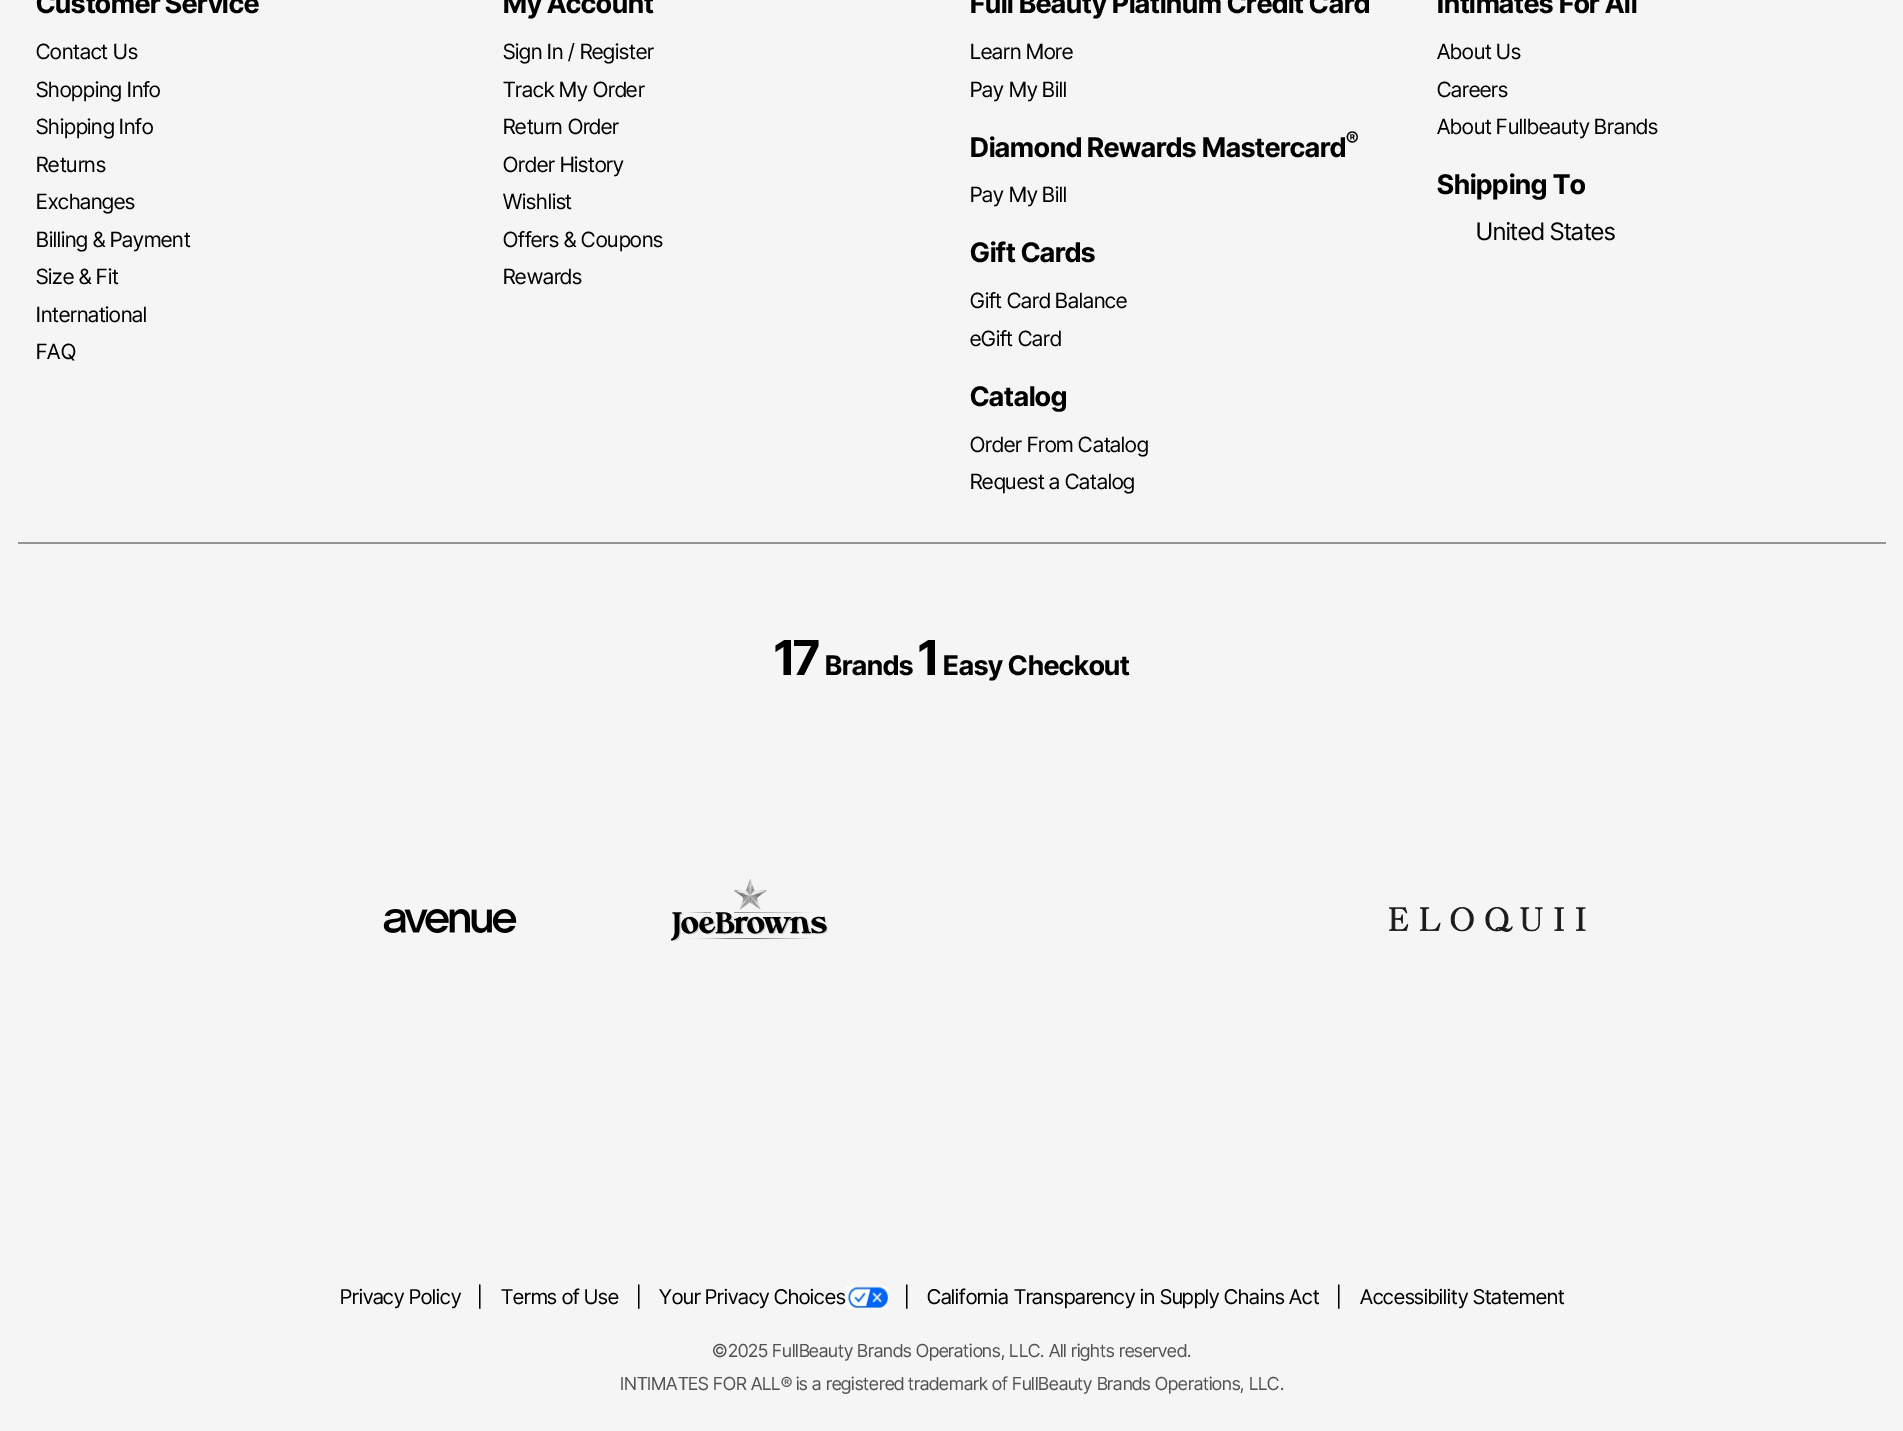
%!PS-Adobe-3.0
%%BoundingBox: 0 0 1903 1431
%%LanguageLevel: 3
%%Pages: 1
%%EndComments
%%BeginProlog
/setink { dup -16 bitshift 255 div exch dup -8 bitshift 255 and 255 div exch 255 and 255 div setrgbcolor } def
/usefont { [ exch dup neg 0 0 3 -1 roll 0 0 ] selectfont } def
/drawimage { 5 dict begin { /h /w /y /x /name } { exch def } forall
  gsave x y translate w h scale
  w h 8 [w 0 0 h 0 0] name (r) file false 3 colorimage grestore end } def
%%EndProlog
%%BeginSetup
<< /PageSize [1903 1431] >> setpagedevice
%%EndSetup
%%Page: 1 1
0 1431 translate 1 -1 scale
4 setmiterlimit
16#F5F5F5 setink
0 0 1903 1431 rectfill
/InterTight-Bold 27 usefont
16#000000 setink
36 13 moveto (Customer Service) show
/InterTight-Regular 21 usefont
[
    [(Contact Us) 36 59]
    [(Shopping Info) 36 97]
    [(Shipping Info) 36 134]
    [(Returns) 36 172]
    [(Exchanges) 36 209]
    [(Billing & Payment) 36 247]
    [(Size & Fit) 36 284]
    [(International) 36 322]
    [(FAQ) 36 359]
] { aload pop moveto show } forall
/InterTight-Bold 27 usefont
503 13 moveto (My Account) show
/InterTight-Regular 21 usefont
[
    [(Sign In / Register) 503 59]
    [(Track My Order) 503 97]
    [(Return Order) 503 134]
    [(Order History) 503 172]
    [(Wishlist) 503 209]
    [(Offers & Coupons) 503 247]
    [(Rewards) 503 284]
] { aload pop moveto show } forall
/InterTight-Bold 27 usefont
970 13 moveto (Full Beauty Platinum Credit Card) show
/InterTight-Regular 21 usefont
970 59 moveto (Learn More) show
970 97 moveto (Pay My Bill) show
/InterTight-Bold 27 usefont
970 157 moveto (Diamond Rewards Mastercard) show
/InterTight-Bold 20 usefont
1346 146 moveto (®) show
/InterTight-Regular 21 usefont
970 202 moveto (Pay My Bill) show
/InterTight-Bold 27 usefont
970 262 moveto (Gift Cards) show
/InterTight-Regular 21 usefont
970 308 moveto (Gift Card Balance) show
970 346 moveto (eGift Card) show
/InterTight-Bold 27 usefont
970 406 moveto (Catalog) show
/InterTight-Regular 21 usefont
970 452 moveto (Order From Catalog) show
970 489 moveto (Request a Catalog) show
/InterTight-Bold 27 usefont
1437 13 moveto (Intimates For All) show
/InterTight-Regular 21 usefont
[
    [(About Us) 1437 59]
    [(Careers) 1437 97]
    [(About Fullbeauty Brands) 1437 134]
] { aload pop moveto show } forall
/InterTight-Bold 27 usefont
1437 194 moveto (Shipping To) show
/InterTight-Regular 24 usefont
1476 240 moveto (United States) show
16#949494 setink
18 542 1868 2 rectfill
/InterTight-Bold 48 usefont
16#000000 setink
774 675 moveto (17) show
/InterTight-Bold 27 usefont
825 675 moveto (Brands) show
/InterTight-Bold 48 usefont
918 675 moveto (1) show
/InterTight-Bold 27 usefont
943 675 moveto (Easy Checkout) show
(img1.raw) 383 909 134 24 drawimage
(img2.raw) 671 879 157 62 drawimage
(img3.raw) 1389 907 197 25 drawimage
/InterTight-Regular 20.4 usefont
[
    [(Privacy Policy) 340 1304]
    [(|) 477 1304]
    [(Terms of Use) 501 1304]
    [(|) 636 1304]
    [(Your Privacy Choices) 659 1304]
] { aload pop moveto show } forall
(img4.raw) 846 1286 42 23 drawimage
[
    [(|) 904 1304]
    [(California Transparency in Supply Chains Act) 927 1304]
    [(|) 1336 1304]
    [(Accessibility Statement) 1360 1304]
] { aload pop moveto show } forall
/InterTight-Regular 18 usefont
16#525252 setink
712 1357 moveto (©2025 FullBeauty Brands Operations, LLC. All rights reserved.) show
620 1390 moveto (INTIMATES FOR ALL® is a registered trademark of FullBeauty Brands Operations, LLC.) show
showpage
%%EOF
